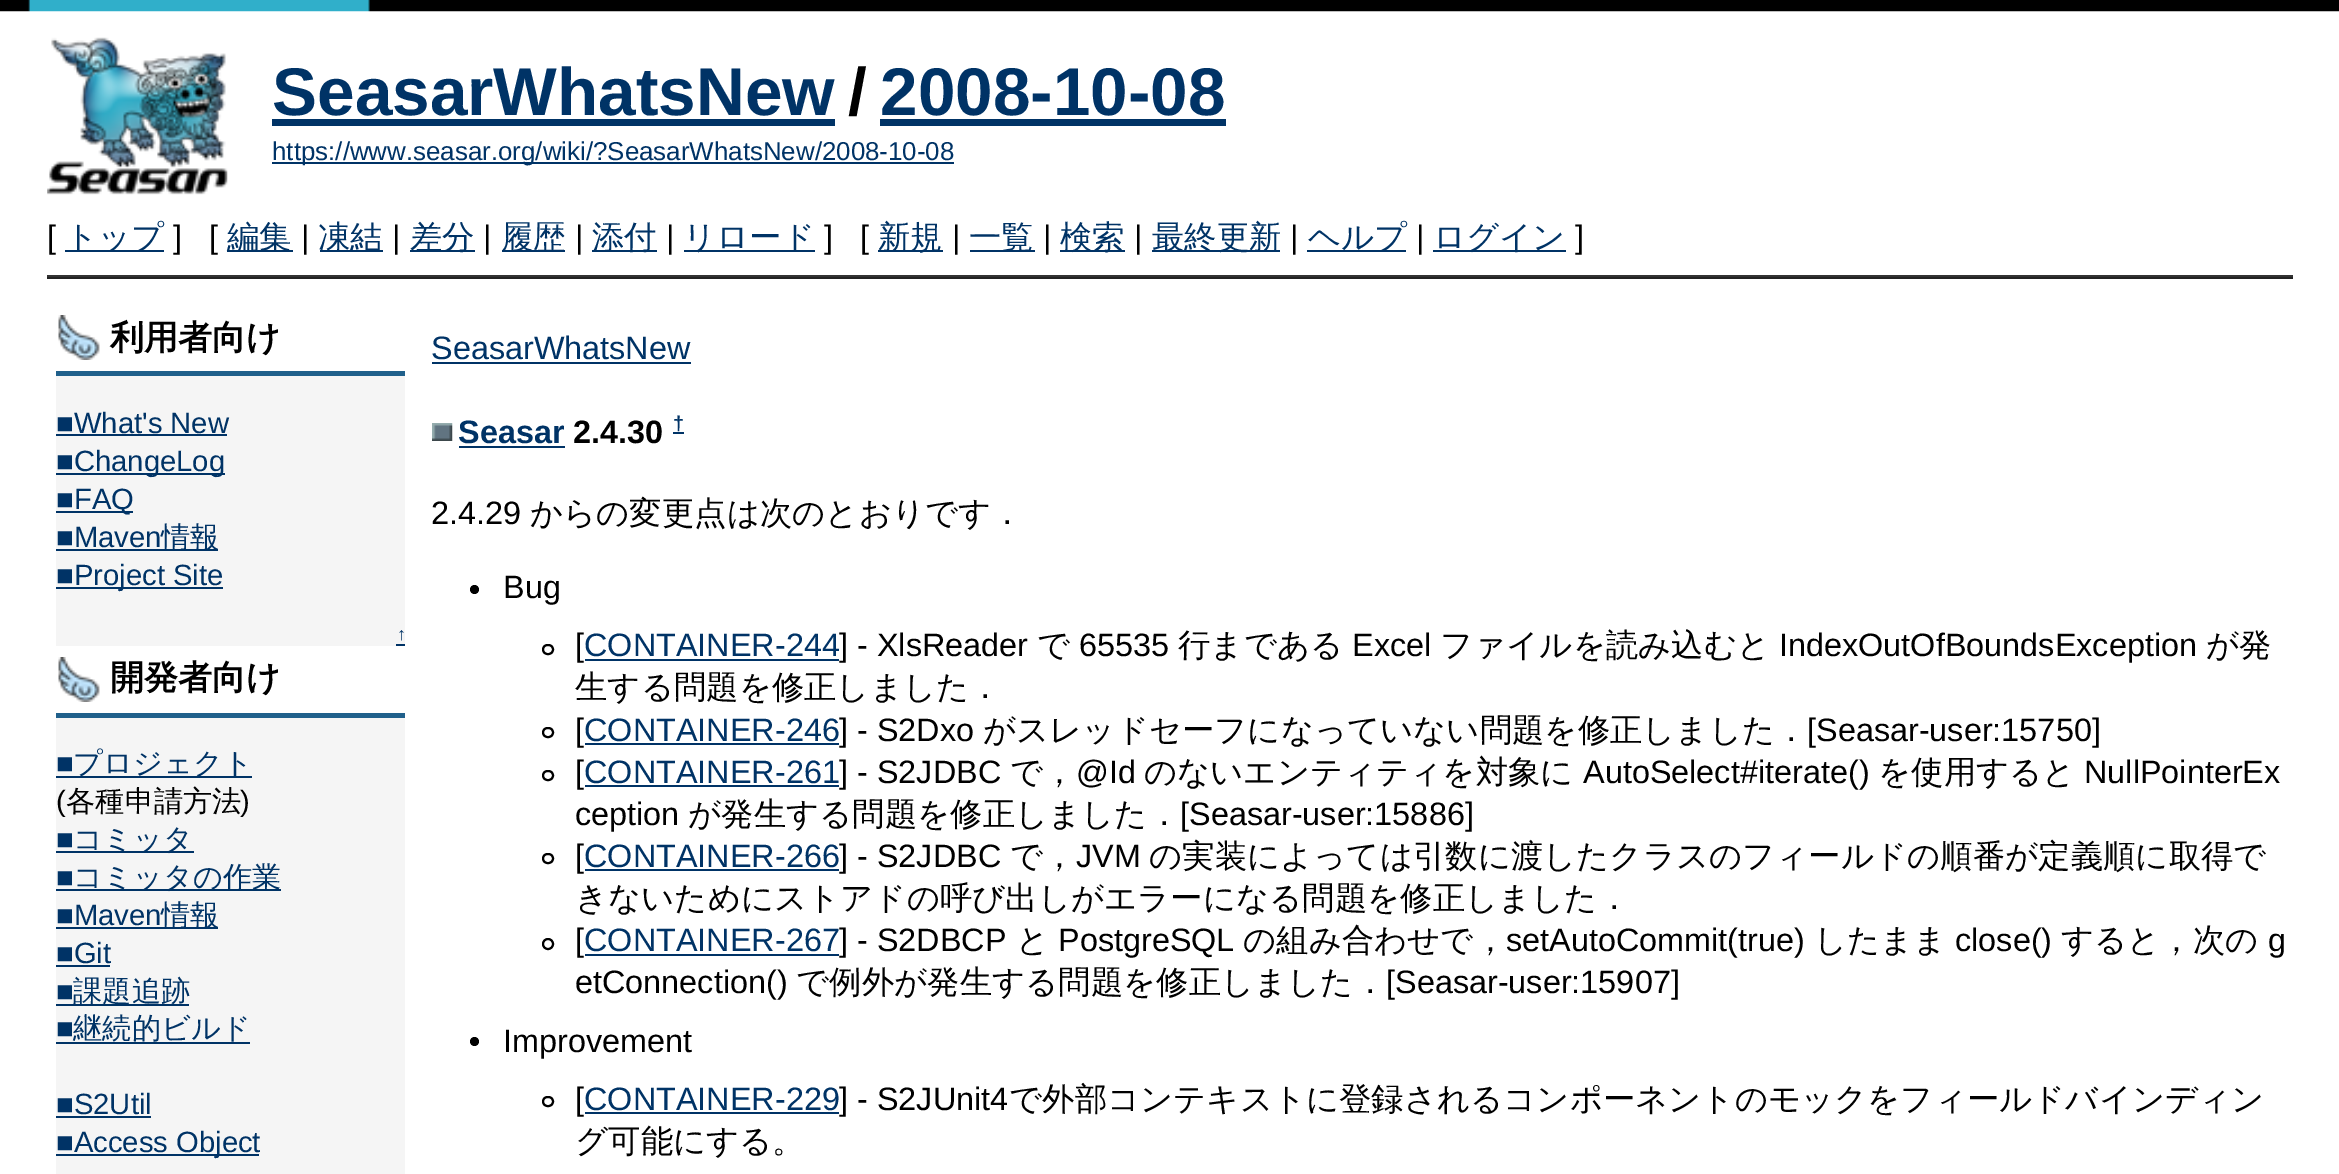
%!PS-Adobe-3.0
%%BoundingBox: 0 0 2339 1174
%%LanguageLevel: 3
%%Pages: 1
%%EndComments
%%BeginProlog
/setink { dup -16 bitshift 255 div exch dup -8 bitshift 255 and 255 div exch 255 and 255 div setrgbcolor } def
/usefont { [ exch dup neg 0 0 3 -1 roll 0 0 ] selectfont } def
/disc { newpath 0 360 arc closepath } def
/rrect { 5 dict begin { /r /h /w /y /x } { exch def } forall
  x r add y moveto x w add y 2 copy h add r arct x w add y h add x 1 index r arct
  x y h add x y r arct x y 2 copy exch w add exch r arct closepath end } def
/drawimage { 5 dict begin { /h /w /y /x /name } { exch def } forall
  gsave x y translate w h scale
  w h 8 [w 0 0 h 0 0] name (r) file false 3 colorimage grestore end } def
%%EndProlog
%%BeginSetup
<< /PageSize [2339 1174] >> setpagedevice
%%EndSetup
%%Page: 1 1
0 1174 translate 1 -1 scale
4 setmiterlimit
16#FFFFFF setink
0 0 2339 1174 rectfill
(img1.raw) 0 0 2339 12 drawimage
(img2.raw) 47 37 181 158 drawimage
/LiberationSans-Bold 67.5 usefont
16#003366 setink
272 115 moveto (SeasarWhatsNew) show
272 119 563 7 rectfill
16#000000 setink
848 115 moveto (/) show
16#003366 setink
880 115 moveto (2008-10-08) show
880 119 346 7 rectfill
272 162 682 2 rectfill
/LiberationSans-Regular 25.9 usefont
272 160 moveto (https://www.seasar.org/wiki/?SeasarWhatsNew/2008-10-08) show
/LiberationSans-Regular 32.4 usefont
16#000000 setink
47 248 moveto ([) show
16#003366 setink
65 250 99 2 rectfill
/WenQuanYiZenHei-Medium 32.4 usefont
65 248 moveto (トップ) show
/LiberationSans-Regular 32.4 usefont
16#000000 setink
173 248 moveto (]) show
209 248 moveto ([) show
16#003366 setink
227 250 66 2 rectfill
/WenQuanYiZenHei-Medium 32.4 usefont
227 248 moveto (編集) show
/LiberationSans-Regular 32.4 usefont
16#000000 setink
301 248 moveto (|) show
16#003366 setink
320 250 63 2 rectfill
/WenQuanYiZenHei-Medium 32.4 usefont
318 248 moveto (凍結) show
/LiberationSans-Regular 32.4 usefont
16#000000 setink
392 248 moveto (|) show
16#003366 setink
410 250 65 2 rectfill
/WenQuanYiZenHei-Medium 32.4 usefont
410 248 moveto (差分) show
/LiberationSans-Regular 32.4 usefont
16#000000 setink
483 248 moveto (|) show
16#003366 setink
502 250 63 2 rectfill
/WenQuanYiZenHei-Medium 32.4 usefont
501 248 moveto (履歴) show
/LiberationSans-Regular 32.4 usefont
16#000000 setink
575 248 moveto (|) show
16#003366 setink
592 250 65 2 rectfill
/WenQuanYiZenHei-Medium 32.4 usefont
592 248 moveto (添付) show
/LiberationSans-Regular 32.4 usefont
16#000000 setink
666 248 moveto (|) show
16#003366 setink
684 250 131 2 rectfill
/WenQuanYiZenHei-Medium 32.4 usefont
683 248 moveto (リロード) show
/LiberationSans-Regular 32.4 usefont
16#000000 setink
824 248 moveto (]) show
860 248 moveto ([) show
16#003366 setink
878 250 65 2 rectfill
/WenQuanYiZenHei-Medium 32.4 usefont
878 248 moveto (新規) show
/LiberationSans-Regular 32.4 usefont
16#000000 setink
952 248 moveto (|) show
16#003366 setink
970 250 65 2 rectfill
/WenQuanYiZenHei-Medium 32.4 usefont
969 248 moveto (一覧) show
/LiberationSans-Regular 32.4 usefont
16#000000 setink
1043 248 moveto (|) show
16#003366 setink
1060 250 65 2 rectfill
/WenQuanYiZenHei-Medium 32.4 usefont
1060 248 moveto (検索) show
/LiberationSans-Regular 32.4 usefont
16#000000 setink
1134 248 moveto (|) show
16#003366 setink
1152 250 128 2 rectfill
/WenQuanYiZenHei-Medium 32.4 usefont
1152 248 moveto (最終更新) show
/LiberationSans-Regular 32.4 usefont
16#000000 setink
1290 248 moveto (|) show
16#003366 setink
1307 250 99 2 rectfill
/WenQuanYiZenHei-Medium 32.4 usefont
1308 248 moveto (ヘルプ) show
/LiberationSans-Regular 32.4 usefont
16#000000 setink
1416 248 moveto (|) show
16#003366 setink
1433 250 133 2 rectfill
/WenQuanYiZenHei-Medium 32.4 usefont
1433 248 moveto (ログイン) show
/LiberationSans-Regular 32.4 usefont
16#000000 setink
1575 248 moveto (]) show
[
    [47 275 2246 2 16#333333]
    [47 277 2246 2 16#222222]
    [56 376 349 798 16#F5F5F5]
] { aload pop setink rectfill } forall
(img3.raw) 58 315 42 45 drawimage
16#20608B setink
56 371 349 5 rectfill
/WenQuanYiZenHei-Bold 34 usefont
16#000000 setink
110 349 moveto (利用者向け) show
/LiberationSans-Regular 29.25 usefont
16#003366 setink
56 433 moveto (■What's New) show
56 434 171 2 rectfill
56 473 169 2 rectfill
56 471 moveto (■ChangeLog) show
56 511 77 2 rectfill
56 509 moveto (■FAQ) show
56 547 moveto (■Maven) show
56 549 162 2 rectfill
/WenQuanYiZenHei-Medium 29.25 usefont
161 547 moveto (情報) show
56 587 167 2 rectfill
/LiberationSans-Regular 29.25 usefont
56 585 moveto (■Project Site) show
/LiberationSans-Regular 18 usefont
397 640 moveto (↑) show
396 644 9 2 rectfill
16#FFFFFF setink
56 646 349 67 rectfill
(img3.raw) 58 657 42 45 drawimage
16#20608B setink
56 713 349 5 rectfill
/WenQuanYiZenHei-Bold 34 usefont
16#000000 setink
110 689 moveto (開発者向け) show
/LiberationSans-Regular 29.25 usefont
16#003366 setink
56 773 moveto (■) show
56 776 196 2 rectfill
/WenQuanYiZenHei-Medium 29.25 usefont
73 773 moveto (プロジェクト) show
/LiberationSans-Regular 29.25 usefont
16#000000 setink
56 811 moveto (\() show
/WenQuanYiZenHei-Medium 29.25 usefont
66 811 moveto (各種申請方法) show
/LiberationSans-Regular 29.25 usefont
240 811 moveto (\)) show
16#003366 setink
56 849 moveto (■) show
56 851 138 2 rectfill
/WenQuanYiZenHei-Medium 29.25 usefont
73 849 moveto (コミッタ) show
/LiberationSans-Regular 29.25 usefont
56 887 moveto (■) show
56 889 225 2 rectfill
/WenQuanYiZenHei-Medium 29.25 usefont
73 887 moveto (コミッタの作業) show
/LiberationSans-Regular 29.25 usefont
56 925 moveto (■Maven) show
56 927 162 2 rectfill
/WenQuanYiZenHei-Medium 29.25 usefont
161 925 moveto (情報) show
/LiberationSans-Regular 29.25 usefont
56 963 moveto (■Git) show
56 965 54 2 rectfill
56 1001 moveto (■) show
56 1004 133 2 rectfill
/WenQuanYiZenHei-Medium 29.25 usefont
73 1001 moveto (課題追跡) show
/LiberationSans-Regular 29.25 usefont
56 1038 moveto (■) show
56 1042 194 2 rectfill
/WenQuanYiZenHei-Medium 29.25 usefont
73 1038 moveto (継続的ビルド) show
/LiberationSans-Regular 29.25 usefont
56 1114 moveto (■S2Util) show
56 1116 95 2 rectfill
56 1154 203 2 rectfill
56 1152 moveto (■Access Object) show
/LiberationSans-Regular 32.4 usefont
431 359 moveto (SeasarWhatsNew) show
432 362 259 2 rectfill
(img4.raw) 432 423 21 18 drawimage
/LiberationSans-Bold 32.4 usefont
458 443 moveto (Seasar) show
459 446 106 2 rectfill
16#000000 setink
573 443 moveto (2.4.30) show
/LiberationSans-Bold 20 usefont
16#003366 setink
673 430 moveto (†) show
673 432 11 2 rectfill
/LiberationSans-Regular 32.4 usefont
16#000000 setink
431 524 moveto (2.4.29) show
/WenQuanYiZenHei-Medium 32.4 usefont
530 524 moveto (からの変更点は次のとおりです．) show
474.5 589.5 4.5 disc fill
/LiberationSans-Regular 32.4 usefont
503 598 moveto (Bug) show
2 setlinewidth
543 645 10 9 4.5 rrect stroke
575 656 moveto ([) show
16#003366 setink
584 656 moveto (CONTAINER-244) show
585 659 254 2 rectfill
16#000000 setink
839 656 moveto (] - XlsReader) show
/WenQuanYiZenHei-Medium 32.4 usefont
1037 656 moveto (で) show
/LiberationSans-Regular 32.4 usefont
1079 656 moveto (65535) show
/WenQuanYiZenHei-Medium 32.4 usefont
1178 656 moveto (行まである) show
/LiberationSans-Regular 32.4 usefont
1352 656 moveto (Excel) show
/WenQuanYiZenHei-Medium 32.4 usefont
1440 656 moveto (ファイルを読み込むと) show
/LiberationSans-Regular 32.4 usefont
1779 656 moveto (IndexOutOfBoundsException) show
/WenQuanYiZenHei-Medium 32.4 usefont
2206 656 moveto (が発) show
575 698 moveto (生する問題を修正しました．) show
543 728 10 9 4.5 rrect stroke
/LiberationSans-Regular 32.4 usefont
575 741 moveto ([) show
16#003366 setink
584 741 moveto (CONTAINER-246) show
585 743 254 2 rectfill
16#000000 setink
839 741 moveto (] - S2Dxo) show
/WenQuanYiZenHei-Medium 32.4 usefont
983 741 moveto (がスレッドセーフになっていない問題を修正しました．) show
/LiberationSans-Regular 32.4 usefont
1807 741 moveto ([Seasar-user:15750]) show
543 771 10 9 4.5 rrect stroke
575 783 moveto ([) show
16#003366 setink
584 783 moveto (CONTAINER-261) show
585 785 254 2 rectfill
16#000000 setink
839 783 moveto (] - S2JDBC) show
/WenQuanYiZenHei-Medium 32.4 usefont
1010 783 moveto (で，) show
/LiberationSans-Regular 32.4 usefont
1076 783 moveto (@Id) show
/WenQuanYiZenHei-Medium 32.4 usefont
1144 783 moveto (のないエンティティを対象に) show
/LiberationSans-Regular 32.4 usefont
1583 783 moveto (AutoSelect#iterate\(\)) show
/WenQuanYiZenHei-Medium 32.4 usefont
1878 783 moveto (を使用すると) show
/LiberationSans-Regular 32.4 usefont
2084 783 moveto (NullPointerEx) show
575 825 moveto (ception) show
/WenQuanYiZenHei-Medium 32.4 usefont
688 825 moveto (が発生する問題を修正しました．) show
/LiberationSans-Regular 32.4 usefont
1180 825 moveto ([Seasar-user:15886]) show
543 854 10 9 4.5 rrect stroke
575 867 moveto ([) show
16#003366 setink
584 867 moveto (CONTAINER-266) show
585 869 254 2 rectfill
16#000000 setink
839 867 moveto (] - S2JDBC) show
/WenQuanYiZenHei-Medium 32.4 usefont
1010 867 moveto (で，) show
/LiberationSans-Regular 32.4 usefont
1076 867 moveto (JVM) show
/WenQuanYiZenHei-Medium 32.4 usefont
1149 867 moveto (の実装によっては引数に渡したクラスのフィールドの順番が定義順に取得で) show
575 909 moveto (きないためにストアドの呼び出しがエラーになる問題を修正しました．) show
548 944 5 disc stroke
/LiberationSans-Regular 32.4 usefont
575 951 moveto ([) show
16#003366 setink
584 951 moveto (CONTAINER-267) show
585 954 254 2 rectfill
16#000000 setink
839 951 moveto (] - S2DBCP) show
/WenQuanYiZenHei-Medium 32.4 usefont
1016 951 moveto (と) show
/LiberationSans-Regular 32.4 usefont
1058 951 moveto (PostgreSQL) show
/WenQuanYiZenHei-Medium 32.4 usefont
1243 951 moveto (の組み合わせで，) show
/LiberationSans-Regular 32.4 usefont
1506 951 moveto (setAutoCommit\(true\)) show
/WenQuanYiZenHei-Medium 32.4 usefont
1814 951 moveto (したまま) show
/LiberationSans-Regular 32.4 usefont
1955 951 moveto (close\(\)) show
/WenQuanYiZenHei-Medium 32.4 usefont
2061 951 moveto (すると，次の) show
/LiberationSans-Regular 32.4 usefont
2268 951 moveto (g) show
575 993 moveto (etConnection\(\)) show
/WenQuanYiZenHei-Medium 32.4 usefont
796 993 moveto (で例外が発生する問題を修正しました．) show
/LiberationSans-Regular 32.4 usefont
1386 993 moveto ([Seasar-user:15907]) show
474.5 1041.5 4.5 disc fill
503 1052 moveto (Improvement) show
543 1097 10 9 4.5 rrect stroke
575 1110 moveto ([) show
16#003366 setink
584 1110 moveto (CONTAINER-229) show
585 1112 254 2 rectfill
16#000000 setink
839 1110 moveto (] - S2JUnit4) show
/WenQuanYiZenHei-Medium 32.4 usefont
1009 1110 moveto (で外部コンテキストに登録されるコンポーネントのモックをフィールドバインディン) show
575 1152 moveto (グ可能にする。) show
showpage
%%EOF
